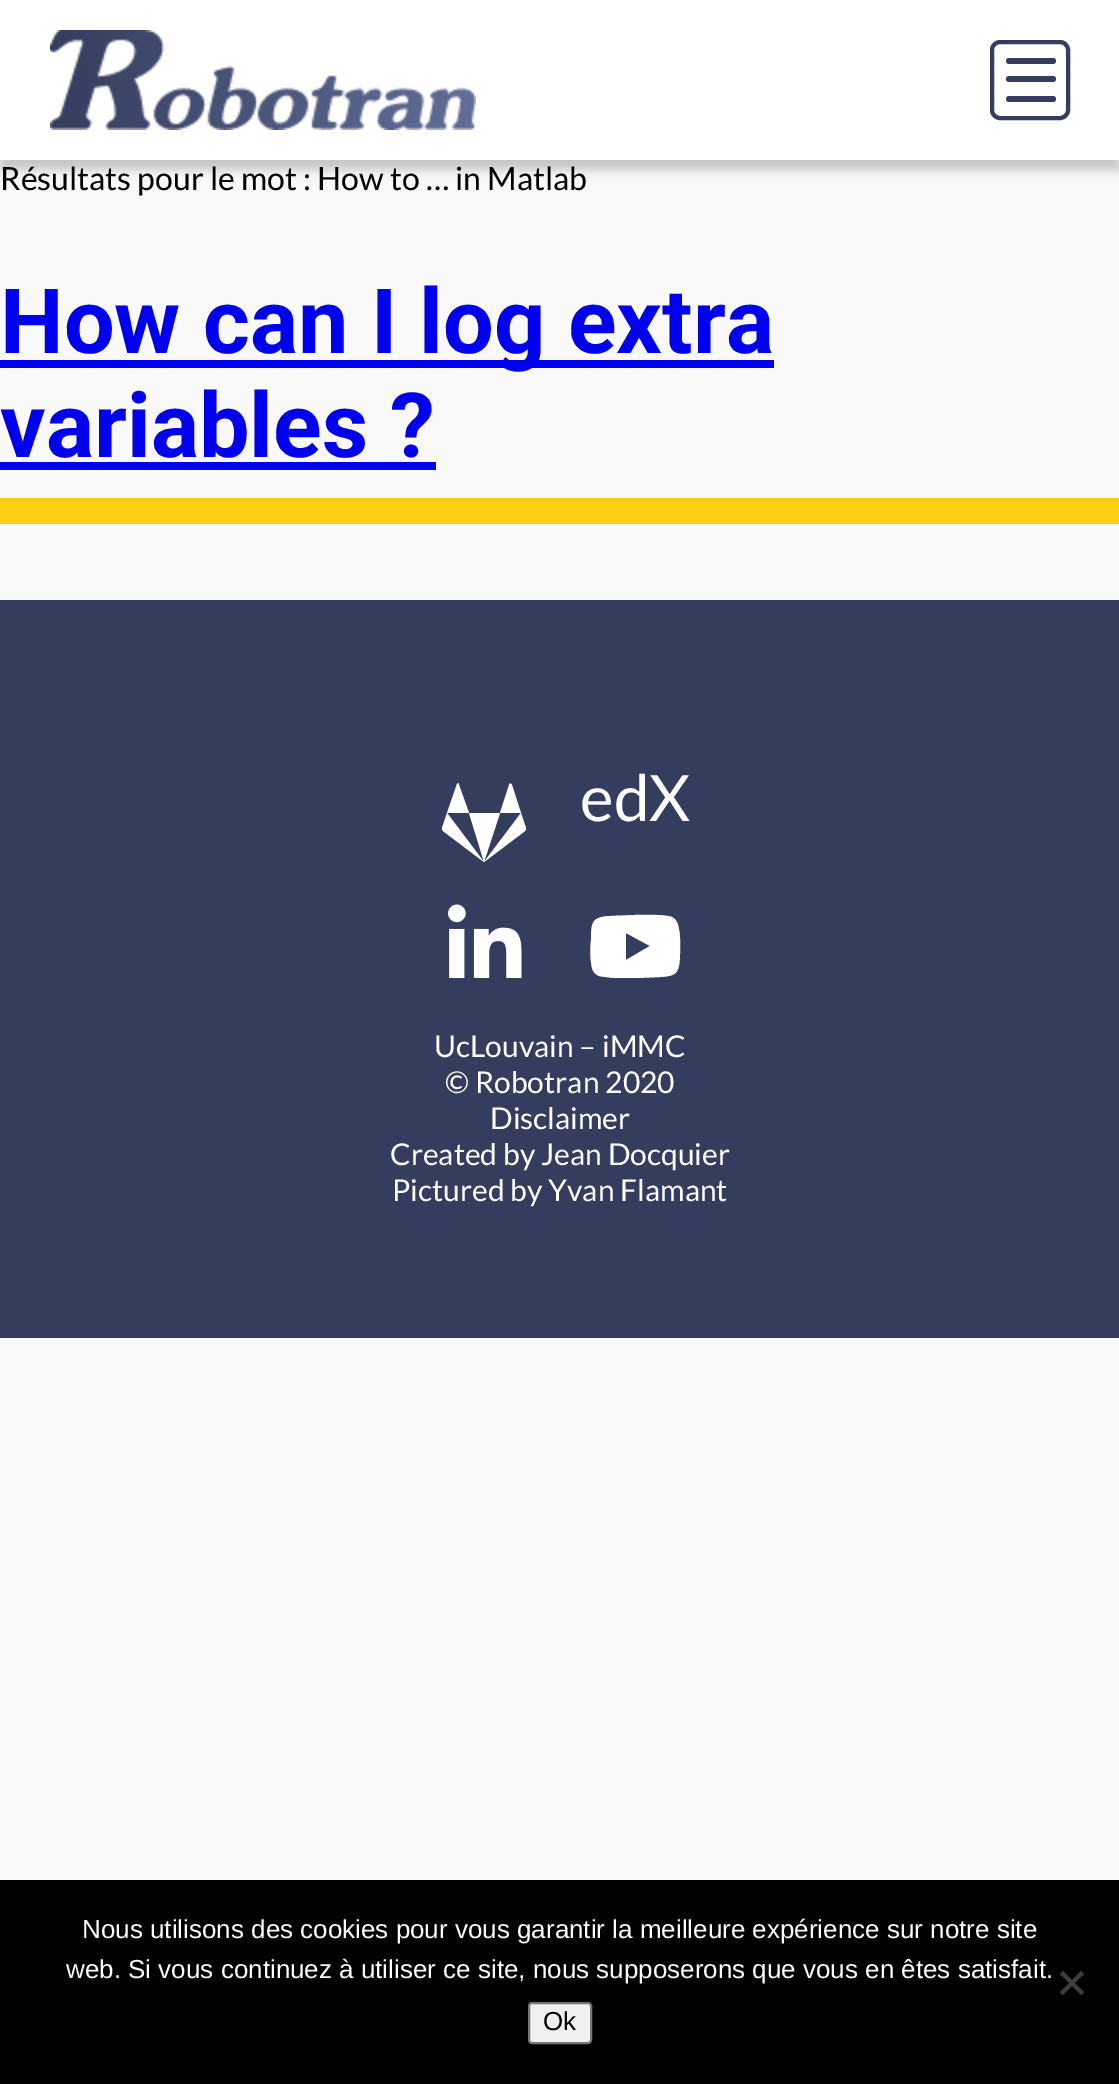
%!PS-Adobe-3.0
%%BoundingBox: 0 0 1119 2084
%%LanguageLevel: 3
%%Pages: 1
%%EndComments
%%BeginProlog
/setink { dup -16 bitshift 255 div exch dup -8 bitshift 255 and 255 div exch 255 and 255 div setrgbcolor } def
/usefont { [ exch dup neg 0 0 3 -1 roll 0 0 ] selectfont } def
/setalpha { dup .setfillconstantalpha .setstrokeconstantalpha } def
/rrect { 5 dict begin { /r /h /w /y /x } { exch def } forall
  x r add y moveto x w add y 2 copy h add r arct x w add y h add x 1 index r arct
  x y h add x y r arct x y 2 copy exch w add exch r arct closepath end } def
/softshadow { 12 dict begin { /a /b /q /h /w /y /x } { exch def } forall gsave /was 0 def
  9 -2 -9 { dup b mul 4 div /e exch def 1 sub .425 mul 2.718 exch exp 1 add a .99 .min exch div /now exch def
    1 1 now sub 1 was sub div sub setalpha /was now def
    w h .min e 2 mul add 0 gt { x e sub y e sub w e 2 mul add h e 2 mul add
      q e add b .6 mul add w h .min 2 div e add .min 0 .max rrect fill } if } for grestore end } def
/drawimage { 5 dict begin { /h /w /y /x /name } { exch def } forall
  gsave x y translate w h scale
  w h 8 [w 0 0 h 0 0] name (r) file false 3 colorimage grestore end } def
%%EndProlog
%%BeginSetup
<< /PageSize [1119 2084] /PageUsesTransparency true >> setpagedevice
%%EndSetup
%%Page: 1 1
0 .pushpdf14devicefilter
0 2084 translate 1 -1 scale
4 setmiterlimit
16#F9F9F9 setink
0 0 1119 2084 rectfill
16#000000 setink
0 10 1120 160 0 5 0.2 softshadow
16#FFFFFF setink
0 0 1119 160 rectfill
(img1.raw) 50 30 426 100 drawimage
16#343D5D setink
4 setlinewidth
992 42 76 76 8 rrect stroke
1006 58 50 6 3 rrect fill
1006 76 50 6 3 rrect fill
1006 96 50 6 3 rrect fill
/Lato-Regular 32 usefont
16#000000 setink
0 190 moveto (Résultats pour le mot : How to … in Matlab) show
16#0000EE setink
0 360 774 8 rectfill
/Roboto-Bold 90 usefont
0 353 moveto (How can I log extra) show
0 457 moveto (variables ?) show
[
    [0 462 436 8 16#0000EE]
    [0 498 1119 26 16#FFD016]
    [0 600 1119 738 16#343D5D]
] { aload pop setink rectfill } forall
16#FFFFFF setink
459 785 moveto 469 813 lineto 447 813 lineto 457 784 lineto 457 783 459 783 459 785 curveto closepath 442 828 moveto 447 813 lineto 484 862 lineto 443 831 lineto 442 830 442 829 442 828 curveto closepath 469 813 moveto 500 813 lineto 484 862 lineto closepath 526 828 moveto 526 829 526 830 525 831 curveto 484 862 lineto 521 813 lineto closepath 512 785 moveto 521 813 lineto 500 813 lineto 509 785 lineto 509 783 511 783 512 785 curveto closepath fill
/Lato-Regular 64 usefont
580 821 moveto (edX) show
(img2.raw) 448 904 74 74 drawimage
678 925 moveto 681 935 680 946 680 956 curveto 679 973 677 976 660 977 curveto 638 978 lineto 612 978 lineto 608 977 603 977 599 976 curveto 595 974 593 972 592 968 curveto 590 960 590 948 591 940 curveto 591 922 592 917 610 916 curveto 634 915 lineto 642 915 664 914 672 917 curveto 675 919 677 921 678 925 curveto closepath 626 960 moveto 650 946 lineto 626 933 lineto closepath fill
/Lato-Regular 30 usefont
[
    [(UcLouvain – iMMC) 434 1057]
    [(© Robotran 2020) 445 1093]
    [(Disclaimer) 490 1129]
    [(Created by Jean Docquier) 390 1165]
    [(Pictured by Yvan Flamant) 392 1201]
] { aload pop moveto show } forall
16#000000 setink
0 1880 1119 204 rectfill
/LiberationSans-Regular 26 usefont
16#FFFFFF setink
82 1938 moveto (Nous utilisons des cookies pour vous garantir la meilleure expérience sur notre site) show
66 1978 moveto (web. Si vous continuez à utiliser ce site, nous supposerons que vous en êtes satisfait.) show
16#404040 setink
1081 1971 moveto 1084 1974 lineto 1063 1995 lineto 1060 1992.5 lineto closepath fill
1060 1974 moveto 1063 1971 lineto 1084 1992.5 lineto 1081 1995 lineto closepath fill
16#EFEFEF setink
529 2003 62 40 3 rrect gsave fill grestore
16#767676 setink
2 setlinewidth
stroke
16#000000 setink
543 2030 moveto (Ok) show
.poppdf14devicefilter showpage
%%EOF
